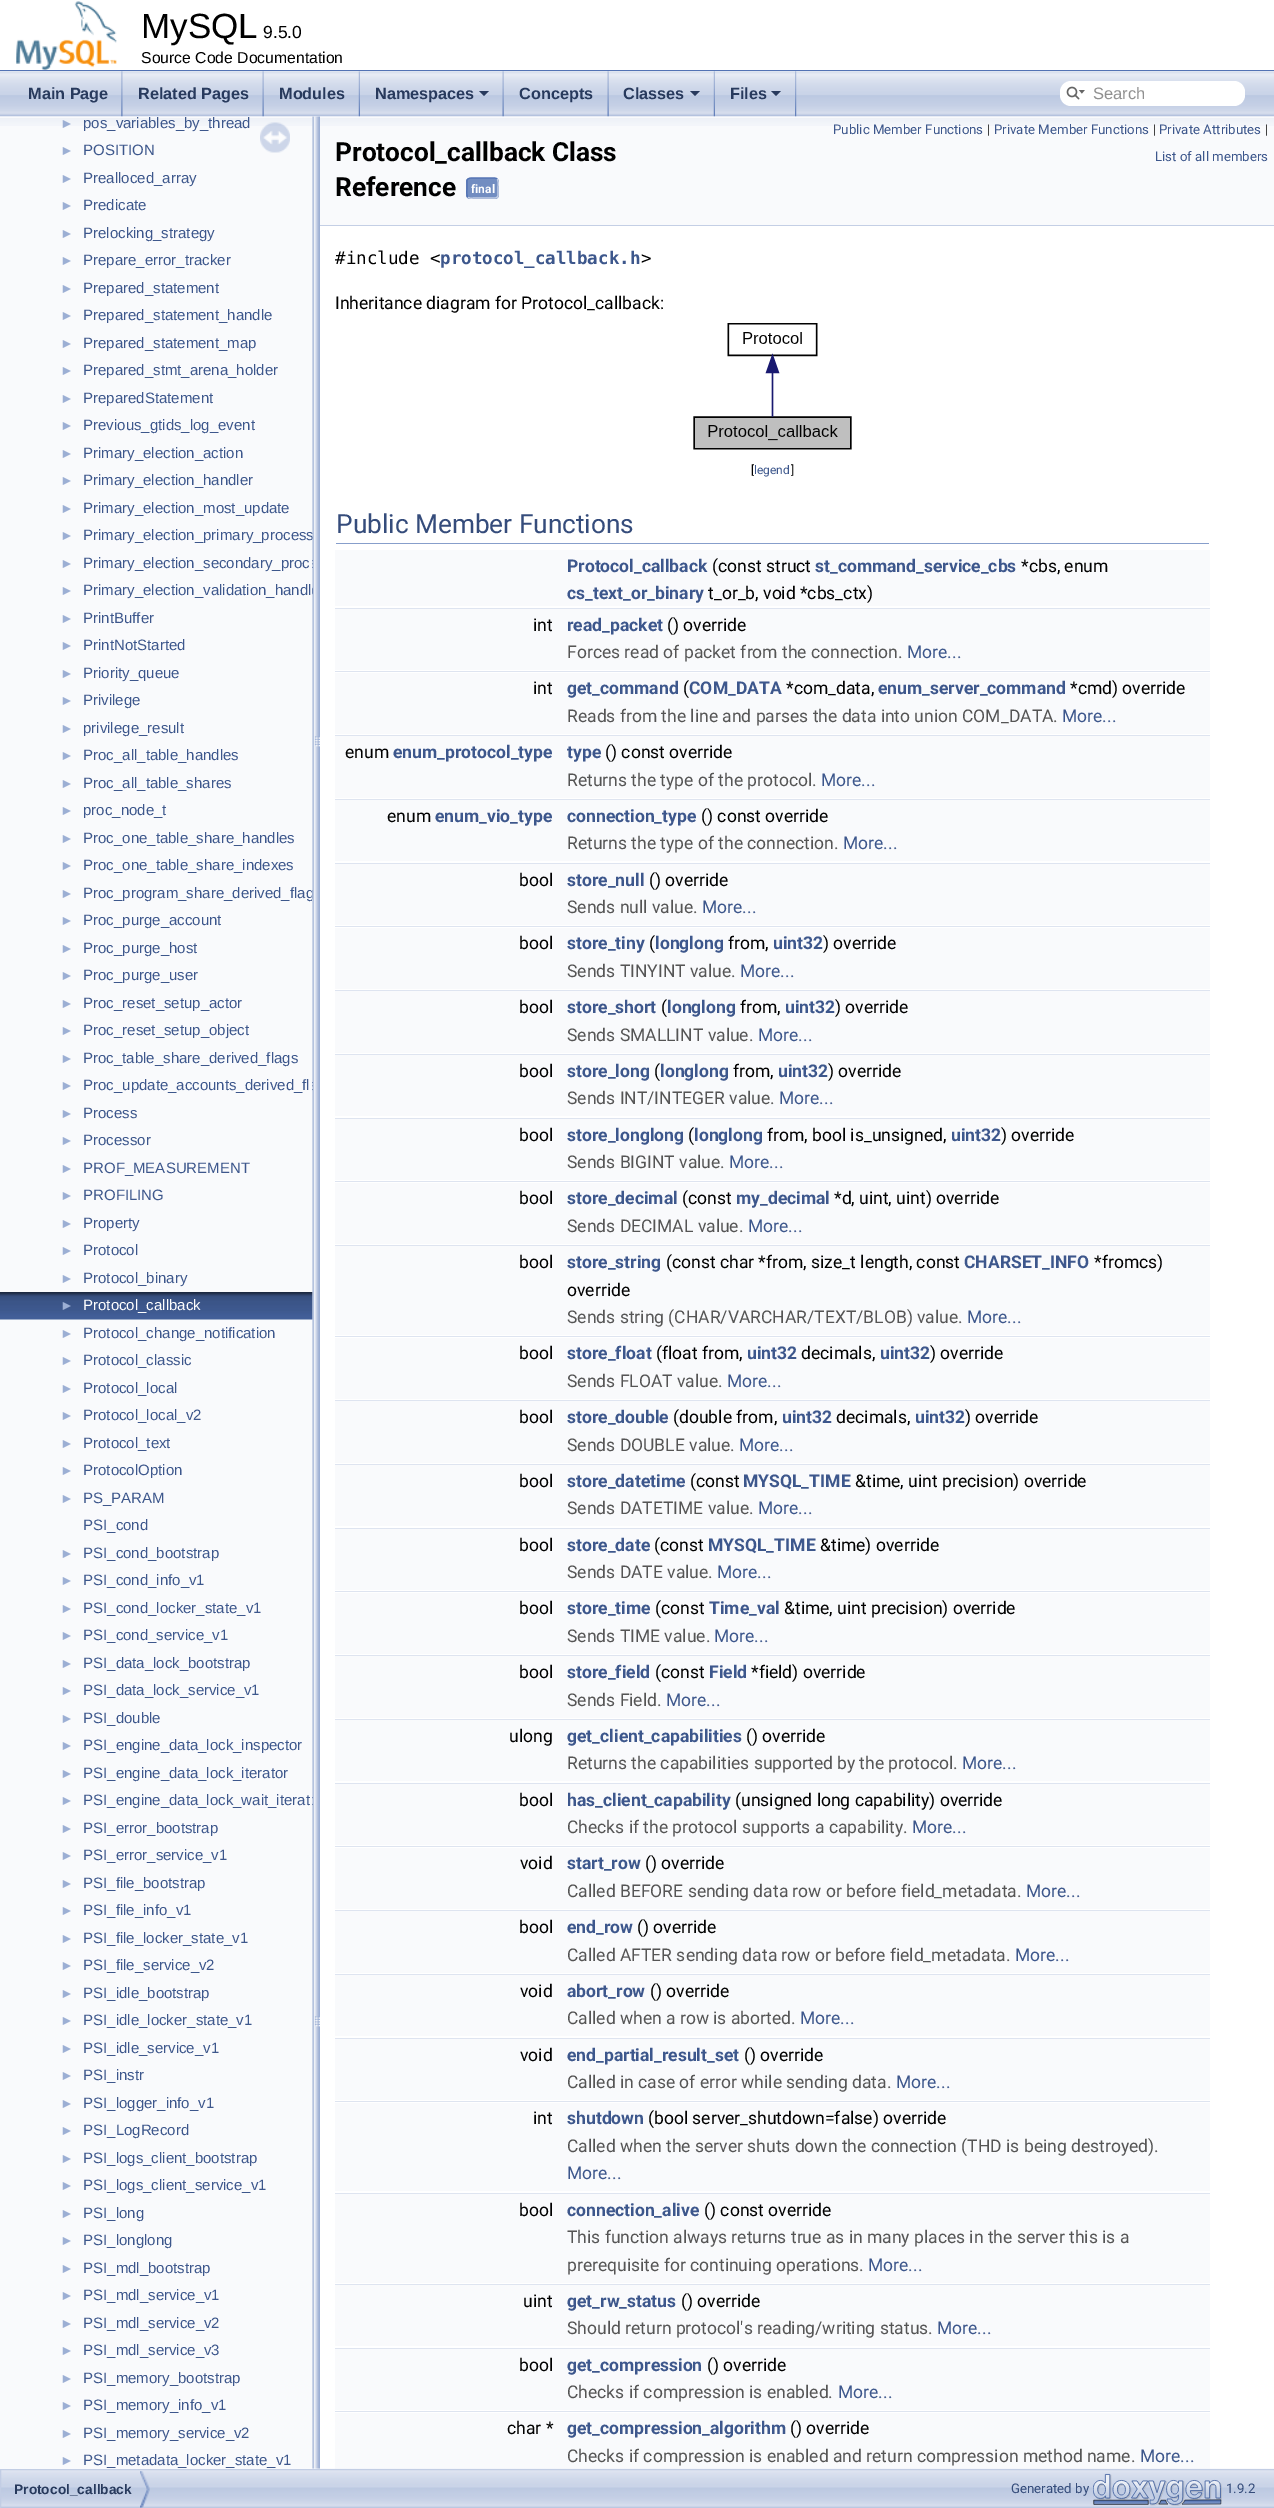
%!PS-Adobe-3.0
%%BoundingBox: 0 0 1274 2508
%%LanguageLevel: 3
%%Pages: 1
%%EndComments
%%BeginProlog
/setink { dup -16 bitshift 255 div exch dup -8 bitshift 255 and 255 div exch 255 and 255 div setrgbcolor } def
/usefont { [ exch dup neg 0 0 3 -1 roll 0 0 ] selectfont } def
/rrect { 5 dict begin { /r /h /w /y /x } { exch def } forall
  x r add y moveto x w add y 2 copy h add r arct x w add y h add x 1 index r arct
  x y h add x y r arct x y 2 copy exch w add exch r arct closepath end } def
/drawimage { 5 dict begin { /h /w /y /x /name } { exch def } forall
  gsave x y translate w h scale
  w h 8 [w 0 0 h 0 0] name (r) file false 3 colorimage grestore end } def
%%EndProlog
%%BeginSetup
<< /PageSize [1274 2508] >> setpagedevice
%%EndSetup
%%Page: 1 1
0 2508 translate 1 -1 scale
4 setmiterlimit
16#FFFFFF setink
0 0 1274 2508 rectfill
16#5373B4 setink
0 70 1274 1 rectfill
(img1.raw) 16 1 101 69 drawimage
/LiberationSans-Regular 35 usefont
16#000000 setink
141 38 moveto (MySQL) show
/LiberationSans-Regular 17.5 usefont
263 38 moveto (9.5.0) show
/LiberationSans-Regular 15.75 usefont
141 63 moveto (Source Code Documentation) show
16#F9FAFC setink
335 2441 875 28 rectfill
(img15.raw) 1 2468 1273 40 drawimage
0 116 313 2353 rectfill
(img9.raw) 0 118 313 8 drawimage
/LiberationSans-Regular 15 usefont
16#3D578C setink
83 540 moveto (Primary_election_primary_process) show
83 898 moveto (Proc_program_share_derived_flag) show
(img10.raw) 0 1292 313 28 drawimage
(img12.raw) 312 116 8 2353 drawimage
16#F9FAFC setink
320 116 954 109 rectfill
(img2.raw) 0 71 1274 46 drawimage
(img3.raw) 121 71 2 46 drawimage
/LiberationSans-Bold 16.25 usefont
16#283A5D setink
28 99 moveto (Main Page) show
(img4.raw) 262 71 2 46 drawimage
138 99 moveto (Related Pages) show
(img5.raw) 358 71 2 46 drawimage
279 99 moveto (Modules) show
(img4.raw) 502 71 2 46 drawimage
375 99 moveto (Namespaces) show
479 91 moveto 489 91 lineto 484 96 lineto closepath fill
(img4.raw) 607 71 2 46 drawimage
519 99 moveto (Concepts) show
(img6.raw) 713 71 2 46 drawimage
623 99 moveto (Classes) show
690 91 moveto 700 91 lineto 695 96 lineto closepath fill
(img7.raw) 795 71 2 46 drawimage
730 99 moveto (Files) show
771 91 moveto 781 91 lineto 776 96 lineto closepath fill
16#FFFFFF setink
1060 81 185 25 11 rrect fill
(img8.raw) 1066 86 19 14 drawimage
/LiberationSans-Regular 16.5 usefont
16#909090 setink
1093 99 moveto (Search) show
/LiberationSans-Regular 14 usefont
16#9CAFD4 setink
60 128 moveto (►) show
/LiberationSans-Regular 15 usefont
16#3D578C setink
83 128 moveto (pos_variables_by_thread) show
/LiberationSans-Regular 14 usefont
16#9CAFD4 setink
60 155 moveto (►) show
/LiberationSans-Regular 15 usefont
16#3D578C setink
83 155 moveto (POSITION) show
/LiberationSans-Regular 14 usefont
16#9CAFD4 setink
60 183 moveto (►) show
/LiberationSans-Regular 15 usefont
16#3D578C setink
83 183 moveto (Prealloced_array) show
/LiberationSans-Regular 14 usefont
16#9CAFD4 setink
60 210 moveto (►) show
/LiberationSans-Regular 15 usefont
16#3D578C setink
83 210 moveto (Predicate) show
/LiberationSans-Regular 14 usefont
16#9CAFD4 setink
60 238 moveto (►) show
/LiberationSans-Regular 15 usefont
16#3D578C setink
83 238 moveto (Prelocking_strategy) show
/LiberationSans-Regular 14 usefont
16#9CAFD4 setink
60 265 moveto (►) show
/LiberationSans-Regular 15 usefont
16#3D578C setink
83 265 moveto (Prepare_error_tracker) show
/LiberationSans-Regular 14 usefont
16#9CAFD4 setink
60 293 moveto (►) show
/LiberationSans-Regular 15 usefont
16#3D578C setink
83 293 moveto (Prepared_statement) show
/LiberationSans-Regular 14 usefont
16#9CAFD4 setink
60 320 moveto (►) show
/LiberationSans-Regular 15 usefont
16#3D578C setink
83 320 moveto (Prepared_statement_handle) show
/LiberationSans-Regular 14 usefont
16#9CAFD4 setink
60 348 moveto (►) show
/LiberationSans-Regular 15 usefont
16#3D578C setink
83 348 moveto (Prepared_statement_map) show
/LiberationSans-Regular 14 usefont
16#9CAFD4 setink
60 375 moveto (►) show
/LiberationSans-Regular 15 usefont
16#3D578C setink
83 375 moveto (Prepared_stmt_arena_holder) show
/LiberationSans-Regular 14 usefont
16#9CAFD4 setink
60 403 moveto (►) show
/LiberationSans-Regular 15 usefont
16#3D578C setink
83 403 moveto (PreparedStatement) show
/LiberationSans-Regular 14 usefont
16#9CAFD4 setink
60 430 moveto (►) show
/LiberationSans-Regular 15 usefont
16#3D578C setink
83 430 moveto (Previous_gtids_log_event) show
/LiberationSans-Regular 14 usefont
16#9CAFD4 setink
60 458 moveto (►) show
/LiberationSans-Regular 15 usefont
16#3D578C setink
83 458 moveto (Primary_election_action) show
/LiberationSans-Regular 14 usefont
16#9CAFD4 setink
60 485 moveto (►) show
/LiberationSans-Regular 15 usefont
16#3D578C setink
83 485 moveto (Primary_election_handler) show
/LiberationSans-Regular 14 usefont
16#9CAFD4 setink
60 513 moveto (►) show
/LiberationSans-Regular 15 usefont
16#3D578C setink
83 513 moveto (Primary_election_most_update) show
/LiberationSans-Regular 14 usefont
16#9CAFD4 setink
60 540 moveto (►) show
60 568 moveto (►) show
/LiberationSans-Regular 15 usefont
16#3D578C setink
83 568 moveto (Primary_election_secondary_proc) show
/LiberationSans-Regular 14 usefont
16#9CAFD4 setink
60 595 moveto (►) show
/LiberationSans-Regular 15 usefont
16#3D578C setink
83 595 moveto (Primary_election_validation_handl) show
/LiberationSans-Regular 14 usefont
16#9CAFD4 setink
60 623 moveto (►) show
/LiberationSans-Regular 15 usefont
16#3D578C setink
83 623 moveto (PrintBuffer) show
/LiberationSans-Regular 14 usefont
16#9CAFD4 setink
60 650 moveto (►) show
/LiberationSans-Regular 15 usefont
16#3D578C setink
83 650 moveto (PrintNotStarted) show
/LiberationSans-Regular 14 usefont
16#9CAFD4 setink
60 678 moveto (►) show
/LiberationSans-Regular 15 usefont
16#3D578C setink
83 678 moveto (Priority_queue) show
/LiberationSans-Regular 14 usefont
16#9CAFD4 setink
60 705 moveto (►) show
/LiberationSans-Regular 15 usefont
16#3D578C setink
83 705 moveto (Privilege) show
/LiberationSans-Regular 14 usefont
16#9CAFD4 setink
60 733 moveto (►) show
/LiberationSans-Regular 15 usefont
16#3D578C setink
83 733 moveto (privilege_result) show
/LiberationSans-Regular 14 usefont
16#9CAFD4 setink
60 760 moveto (►) show
/LiberationSans-Regular 15 usefont
16#3D578C setink
83 760 moveto (Proc_all_table_handles) show
/LiberationSans-Regular 14 usefont
16#9CAFD4 setink
60 788 moveto (►) show
/LiberationSans-Regular 15 usefont
16#3D578C setink
83 788 moveto (Proc_all_table_shares) show
/LiberationSans-Regular 14 usefont
16#9CAFD4 setink
60 815 moveto (►) show
/LiberationSans-Regular 15 usefont
16#3D578C setink
83 815 moveto (proc_node_t) show
/LiberationSans-Regular 14 usefont
16#9CAFD4 setink
60 843 moveto (►) show
/LiberationSans-Regular 15 usefont
16#3D578C setink
83 843 moveto (Proc_one_table_share_handles) show
/LiberationSans-Regular 14 usefont
16#9CAFD4 setink
60 870 moveto (►) show
/LiberationSans-Regular 15 usefont
16#3D578C setink
83 870 moveto (Proc_one_table_share_indexes) show
/LiberationSans-Regular 14 usefont
16#9CAFD4 setink
60 898 moveto (►) show
60 925 moveto (►) show
/LiberationSans-Regular 15 usefont
16#3D578C setink
83 925 moveto (Proc_purge_account) show
/LiberationSans-Regular 14 usefont
16#9CAFD4 setink
60 953 moveto (►) show
/LiberationSans-Regular 15 usefont
16#3D578C setink
83 953 moveto (Proc_purge_host) show
/LiberationSans-Regular 14 usefont
16#9CAFD4 setink
60 980 moveto (►) show
/LiberationSans-Regular 15 usefont
16#3D578C setink
83 980 moveto (Proc_purge_user) show
/LiberationSans-Regular 14 usefont
16#9CAFD4 setink
60 1008 moveto (►) show
/LiberationSans-Regular 15 usefont
16#3D578C setink
83 1008 moveto (Proc_reset_setup_actor) show
/LiberationSans-Regular 14 usefont
16#9CAFD4 setink
60 1035 moveto (►) show
/LiberationSans-Regular 15 usefont
16#3D578C setink
83 1035 moveto (Proc_reset_setup_object) show
/LiberationSans-Regular 14 usefont
16#9CAFD4 setink
60 1063 moveto (►) show
/LiberationSans-Regular 15 usefont
16#3D578C setink
83 1063 moveto (Proc_table_share_derived_flags) show
/LiberationSans-Regular 14 usefont
16#9CAFD4 setink
60 1090 moveto (►) show
/LiberationSans-Regular 15 usefont
16#3D578C setink
83 1090 moveto (Proc_update_accounts_derived_fl) show
/LiberationSans-Regular 14 usefont
16#9CAFD4 setink
60 1118 moveto (►) show
/LiberationSans-Regular 15 usefont
16#3D578C setink
83 1118 moveto (Process) show
/LiberationSans-Regular 14 usefont
16#9CAFD4 setink
60 1145 moveto (►) show
/LiberationSans-Regular 15 usefont
16#3D578C setink
83 1145 moveto (Processor) show
/LiberationSans-Regular 14 usefont
16#9CAFD4 setink
60 1173 moveto (►) show
/LiberationSans-Regular 15 usefont
16#3D578C setink
83 1173 moveto (PROF_MEASUREMENT) show
/LiberationSans-Regular 14 usefont
16#9CAFD4 setink
60 1200 moveto (►) show
/LiberationSans-Regular 15 usefont
16#3D578C setink
83 1200 moveto (PROFILING) show
/LiberationSans-Regular 14 usefont
16#9CAFD4 setink
60 1228 moveto (►) show
/LiberationSans-Regular 15 usefont
16#3D578C setink
83 1228 moveto (Property) show
/LiberationSans-Regular 14 usefont
16#9CAFD4 setink
60 1255 moveto (►) show
/LiberationSans-Regular 15 usefont
16#3D578C setink
83 1255 moveto (Protocol) show
/LiberationSans-Regular 14 usefont
16#9CAFD4 setink
60 1283 moveto (►) show
/LiberationSans-Regular 15 usefont
16#3D578C setink
83 1283 moveto (Protocol_binary) show
/LiberationSans-Regular 14 usefont
16#9CAFD4 setink
60 1310 moveto (►) show
/LiberationSans-Regular 15 usefont
16#FFFFFF setink
83 1310 moveto (Protocol_callback) show
/LiberationSans-Regular 14 usefont
16#9CAFD4 setink
60 1338 moveto (►) show
/LiberationSans-Regular 15 usefont
16#3D578C setink
83 1338 moveto (Protocol_change_notification) show
/LiberationSans-Regular 14 usefont
16#9CAFD4 setink
60 1365 moveto (►) show
/LiberationSans-Regular 15 usefont
16#3D578C setink
83 1365 moveto (Protocol_classic) show
/LiberationSans-Regular 14 usefont
16#9CAFD4 setink
60 1393 moveto (►) show
/LiberationSans-Regular 15 usefont
16#3D578C setink
83 1393 moveto (Protocol_local) show
/LiberationSans-Regular 14 usefont
16#9CAFD4 setink
60 1420 moveto (►) show
/LiberationSans-Regular 15 usefont
16#3D578C setink
83 1420 moveto (Protocol_local_v2) show
/LiberationSans-Regular 14 usefont
16#9CAFD4 setink
60 1448 moveto (►) show
/LiberationSans-Regular 15 usefont
16#3D578C setink
83 1448 moveto (Protocol_text) show
/LiberationSans-Regular 14 usefont
16#9CAFD4 setink
60 1475 moveto (►) show
/LiberationSans-Regular 15 usefont
16#3D578C setink
83 1475 moveto (ProtocolOption) show
/LiberationSans-Regular 14 usefont
16#9CAFD4 setink
60 1503 moveto (►) show
/LiberationSans-Regular 15 usefont
16#3D578C setink
83 1503 moveto (PS_PARAM) show
83 1530 moveto (PSI_cond) show
/LiberationSans-Regular 14 usefont
16#9CAFD4 setink
60 1558 moveto (►) show
/LiberationSans-Regular 15 usefont
16#3D578C setink
83 1558 moveto (PSI_cond_bootstrap) show
/LiberationSans-Regular 14 usefont
16#9CAFD4 setink
60 1585 moveto (►) show
/LiberationSans-Regular 15 usefont
16#3D578C setink
83 1585 moveto (PSI_cond_info_v1) show
/LiberationSans-Regular 14 usefont
16#9CAFD4 setink
60 1613 moveto (►) show
/LiberationSans-Regular 15 usefont
16#3D578C setink
83 1613 moveto (PSI_cond_locker_state_v1) show
/LiberationSans-Regular 14 usefont
16#9CAFD4 setink
60 1640 moveto (►) show
/LiberationSans-Regular 15 usefont
16#3D578C setink
83 1640 moveto (PSI_cond_service_v1) show
/LiberationSans-Regular 14 usefont
16#9CAFD4 setink
60 1668 moveto (►) show
/LiberationSans-Regular 15 usefont
16#3D578C setink
83 1668 moveto (PSI_data_lock_bootstrap) show
/LiberationSans-Regular 14 usefont
16#9CAFD4 setink
60 1695 moveto (►) show
/LiberationSans-Regular 15 usefont
16#3D578C setink
83 1695 moveto (PSI_data_lock_service_v1) show
/LiberationSans-Regular 14 usefont
16#9CAFD4 setink
60 1723 moveto (►) show
/LiberationSans-Regular 15 usefont
16#3D578C setink
83 1723 moveto (PSI_double) show
/LiberationSans-Regular 14 usefont
16#9CAFD4 setink
60 1750 moveto (►) show
/LiberationSans-Regular 15 usefont
16#3D578C setink
83 1750 moveto (PSI_engine_data_lock_inspector) show
/LiberationSans-Regular 14 usefont
16#9CAFD4 setink
60 1778 moveto (►) show
/LiberationSans-Regular 15 usefont
16#3D578C setink
83 1778 moveto (PSI_engine_data_lock_iterator) show
/LiberationSans-Regular 14 usefont
16#9CAFD4 setink
60 1805 moveto (►) show
/LiberationSans-Regular 15 usefont
16#3D578C setink
83 1805 moveto (PSI_engine_data_lock_wait_iterat) show
/LiberationSans-Regular 14 usefont
16#9CAFD4 setink
60 1833 moveto (►) show
/LiberationSans-Regular 15 usefont
16#3D578C setink
83 1833 moveto (PSI_error_bootstrap) show
/LiberationSans-Regular 14 usefont
16#9CAFD4 setink
60 1860 moveto (►) show
/LiberationSans-Regular 15 usefont
16#3D578C setink
83 1860 moveto (PSI_error_service_v1) show
/LiberationSans-Regular 14 usefont
16#9CAFD4 setink
60 1888 moveto (►) show
/LiberationSans-Regular 15 usefont
16#3D578C setink
83 1888 moveto (PSI_file_bootstrap) show
/LiberationSans-Regular 14 usefont
16#9CAFD4 setink
60 1915 moveto (►) show
/LiberationSans-Regular 15 usefont
16#3D578C setink
83 1915 moveto (PSI_file_info_v1) show
/LiberationSans-Regular 14 usefont
16#9CAFD4 setink
60 1943 moveto (►) show
/LiberationSans-Regular 15 usefont
16#3D578C setink
83 1943 moveto (PSI_file_locker_state_v1) show
/LiberationSans-Regular 14 usefont
16#9CAFD4 setink
60 1970 moveto (►) show
/LiberationSans-Regular 15 usefont
16#3D578C setink
83 1970 moveto (PSI_file_service_v2) show
/LiberationSans-Regular 14 usefont
16#9CAFD4 setink
60 1998 moveto (►) show
/LiberationSans-Regular 15 usefont
16#3D578C setink
83 1998 moveto (PSI_idle_bootstrap) show
/LiberationSans-Regular 14 usefont
16#9CAFD4 setink
60 2025 moveto (►) show
/LiberationSans-Regular 15 usefont
16#3D578C setink
83 2025 moveto (PSI_idle_locker_state_v1) show
/LiberationSans-Regular 14 usefont
16#9CAFD4 setink
60 2053 moveto (►) show
/LiberationSans-Regular 15 usefont
16#3D578C setink
83 2053 moveto (PSI_idle_service_v1) show
/LiberationSans-Regular 14 usefont
16#9CAFD4 setink
60 2080 moveto (►) show
/LiberationSans-Regular 15 usefont
16#3D578C setink
83 2080 moveto (PSI_instr) show
/LiberationSans-Regular 14 usefont
16#9CAFD4 setink
60 2108 moveto (►) show
/LiberationSans-Regular 15 usefont
16#3D578C setink
83 2108 moveto (PSI_logger_info_v1) show
/LiberationSans-Regular 14 usefont
16#9CAFD4 setink
60 2135 moveto (►) show
/LiberationSans-Regular 15 usefont
16#3D578C setink
83 2135 moveto (PSI_LogRecord) show
/LiberationSans-Regular 14 usefont
16#9CAFD4 setink
60 2163 moveto (►) show
/LiberationSans-Regular 15 usefont
16#3D578C setink
83 2163 moveto (PSI_logs_client_bootstrap) show
/LiberationSans-Regular 14 usefont
16#9CAFD4 setink
60 2190 moveto (►) show
/LiberationSans-Regular 15 usefont
16#3D578C setink
83 2190 moveto (PSI_logs_client_service_v1) show
/LiberationSans-Regular 14 usefont
16#9CAFD4 setink
60 2218 moveto (►) show
/LiberationSans-Regular 15 usefont
16#3D578C setink
83 2218 moveto (PSI_long) show
/LiberationSans-Regular 14 usefont
16#9CAFD4 setink
60 2245 moveto (►) show
/LiberationSans-Regular 15 usefont
16#3D578C setink
83 2245 moveto (PSI_longlong) show
/LiberationSans-Regular 14 usefont
16#9CAFD4 setink
60 2273 moveto (►) show
/LiberationSans-Regular 15 usefont
16#3D578C setink
83 2273 moveto (PSI_mdl_bootstrap) show
/LiberationSans-Regular 14 usefont
16#9CAFD4 setink
60 2300 moveto (►) show
/LiberationSans-Regular 15 usefont
16#3D578C setink
83 2300 moveto (PSI_mdl_service_v1) show
/LiberationSans-Regular 14 usefont
16#9CAFD4 setink
60 2328 moveto (►) show
/LiberationSans-Regular 15 usefont
16#3D578C setink
83 2328 moveto (PSI_mdl_service_v2) show
/LiberationSans-Regular 14 usefont
16#9CAFD4 setink
60 2355 moveto (►) show
/LiberationSans-Regular 15 usefont
16#3D578C setink
83 2355 moveto (PSI_mdl_service_v3) show
/LiberationSans-Regular 14 usefont
16#9CAFD4 setink
60 2383 moveto (►) show
/LiberationSans-Regular 15 usefont
16#3D578C setink
83 2383 moveto (PSI_memory_bootstrap) show
/LiberationSans-Regular 14 usefont
16#9CAFD4 setink
60 2410 moveto (►) show
/LiberationSans-Regular 15 usefont
16#3D578C setink
83 2410 moveto (PSI_memory_info_v1) show
/LiberationSans-Regular 14 usefont
16#9CAFD4 setink
60 2438 moveto (►) show
/LiberationSans-Regular 15 usefont
16#3D578C setink
83 2438 moveto (PSI_memory_service_v2) show
/LiberationSans-Regular 14 usefont
16#9CAFD4 setink
60 2465 moveto (►) show
/LiberationSans-Regular 15 usefont
16#3D578C setink
83 2465 moveto (PSI_metadata_locker_state_v1) show
(img11.raw) 260 122 30 31 drawimage
(img13.raw) 320 118 954 8 drawimage
16#C4CFE5 setink
320 225 954 1 rectfill
/Roboto-Bold 26.25 usefont
16#000000 setink
335 161 moveto (Protocol_callback Class) show
335 196 moveto (Reference) show
16#728DC1 setink
466 178 33 21 4 rrect fill
16#C4CFE5 setink
1.2 setlinewidth
497 179 moveto 499 181 498 186 498 188 curveto 498 195.5 lineto 497.5 199 493 198 491 198 curveto 474 198 lineto 472.5 198 469.5 199 468 197 curveto stroke
16#5373B4 setink
468 197 moveto 466 195.5 467 190 467 188 curveto 467 180.5 lineto 467.5 177.5 472 178 474 178 curveto 491 178 lineto 492.5 178 495.5 177.5 497 179 curveto stroke
/Roboto-Bold 12 usefont
16#FFFFFF setink
471 193 moveto (final) show
/Roboto-Regular 13.25 usefont
16#3D578C setink
833 134 moveto (Public Member Functions) show
16#000000 setink
987 134 moveto (|) show
16#3D578C setink
994 134 moveto (Private Member Functions) show
16#000000 setink
1153 134 moveto (|) show
16#3D578C setink
1159 134 moveto (Private Attributes) show
16#000000 setink
1265 134 moveto (|) show
16#3D578C setink
1155 161 moveto (List of all members) show
/DejaVuSansMono-Regular 17.5 usefont
16#000000 setink
335 264 moveto (#include <) show
/DejaVuSansMono-Bold 17.5 usefont
16#3D578C setink
440 264 moveto (protocol_callback.h) show
/DejaVuSansMono-Regular 17.5 usefont
16#000000 setink
641 264 moveto (>) show
/Roboto-Regular 17.5 usefont
335 309 moveto (Inheritance diagram for Protocol_callback:) show
(img14.raw) 693 323 159 127 drawimage
/Roboto-Regular 12 usefont
751 474 moveto ([) show
16#3D578C setink
754 474 moveto (legend) show
16#000000 setink
791 474 moveto (]) show
16#879ECB setink
336 543 873 1 rectfill
/Roboto-Regular 26.25 usefont
16#354C7B setink
336 533 moveto (Public Member Functions) show
16#F9FAFC setink
335 550 875 56 rectfill
/Roboto-Bold 17.5 usefont
16#3D578C setink
567 572 moveto (Protocol_callback) show
/Roboto-Regular 17.5 usefont
16#000000 setink
712 572 moveto (\(const struct) show
/Roboto-Bold 17.5 usefont
16#3D578C setink
815 572 moveto (st_command_service_cbs) show
/Roboto-Regular 17.5 usefont
16#000000 setink
1021 572 moveto (*cbs, enum) show
/Roboto-Bold 17.5 usefont
16#3D578C setink
567 599 moveto (cs_text_or_binary) show
/Roboto-Regular 17.5 usefont
16#000000 setink
708 599 moveto (t_or_b, void *cbs_ctx\)) show
16#DEE4F0 setink
335 608 875 1 rectfill
16#F9FAFC setink
335 609 875 29 rectfill
16#000000 setink
533 631 moveto (int) show
/Roboto-Bold 17.5 usefont
16#3D578C setink
567 631 moveto (read_packet) show
/Roboto-Regular 17.5 usefont
16#000000 setink
667 631 moveto (\(\) override) show
16#F9FAFC setink
335 638 875 32 rectfill
16#555555 setink
567 658 moveto (Forces read of packet from the connection.) show
16#3D578C setink
907 658 moveto (More...) show
16#DEE4F0 setink
335 671 875 1 rectfill
16#F9FAFC setink
335 673 875 28 rectfill
16#000000 setink
533 694 moveto (int) show
/Roboto-Bold 17.5 usefont
16#3D578C setink
567 694 moveto (get_command) show
/Roboto-Regular 17.5 usefont
16#000000 setink
683 694 moveto (\() show
/Roboto-Bold 17.5 usefont
16#3D578C setink
689 694 moveto (COM_DATA) show
/Roboto-Regular 17.5 usefont
16#000000 setink
786 694 moveto (*com_data,) show
/Roboto-Bold 17.5 usefont
16#3D578C setink
878 694 moveto (enum_server_command) show
/Roboto-Regular 17.5 usefont
16#000000 setink
1070 694 moveto (*cmd\) override) show
16#F9FAFC setink
335 701 875 33 rectfill
16#555555 setink
567 722 moveto (Reads from the line and parses the data into union COM_DATA.) show
16#3D578C setink
1062 722 moveto (More...) show
16#DEE4F0 setink
335 735 875 1 rectfill
16#F9FAFC setink
335 736 875 29 rectfill
16#000000 setink
345 758 moveto (enum) show
/Roboto-Bold 17.5 usefont
16#3D578C setink
393 758 moveto (enum_protocol_type) show
567 758 moveto (type) show
/Roboto-Regular 17.5 usefont
16#000000 setink
605 758 moveto (\(\) const override) show
16#F9FAFC setink
335 765 875 33 rectfill
16#555555 setink
567 786 moveto (Returns the type of the protocol.) show
16#3D578C setink
821 786 moveto (More...) show
16#DEE4F0 setink
335 799 875 1 rectfill
16#F9FAFC setink
335 800 875 29 rectfill
16#000000 setink
387 822 moveto (enum) show
/Roboto-Bold 17.5 usefont
16#3D578C setink
435 822 moveto (enum_vio_type) show
567 822 moveto (connection_type) show
/Roboto-Regular 17.5 usefont
16#000000 setink
701 822 moveto (\(\) const override) show
16#F9FAFC setink
335 829 875 32 rectfill
16#555555 setink
567 849 moveto (Returns the type of the connection.) show
16#3D578C setink
843 849 moveto (More...) show
16#DEE4F0 setink
335 863 875 1 rectfill
16#F9FAFC setink
335 864 875 29 rectfill
16#000000 setink
519 886 moveto (bool) show
/Roboto-Bold 17.5 usefont
16#3D578C setink
567 886 moveto (store_null) show
/Roboto-Regular 17.5 usefont
16#000000 setink
649 886 moveto (\(\) override) show
16#F9FAFC setink
335 893 875 32 rectfill
16#555555 setink
567 913 moveto (Sends null value.) show
16#3D578C setink
702 913 moveto (More...) show
16#DEE4F0 setink
335 926 875 1 rectfill
16#F9FAFC setink
335 928 875 28 rectfill
16#000000 setink
519 949 moveto (bool) show
/Roboto-Bold 17.5 usefont
16#3D578C setink
567 949 moveto (store_tiny) show
/Roboto-Regular 17.5 usefont
16#000000 setink
649 949 moveto (\() show
/Roboto-Bold 17.5 usefont
16#3D578C setink
655 949 moveto (longlong) show
/Roboto-Regular 17.5 usefont
16#000000 setink
728 949 moveto (from,) show
/Roboto-Bold 17.5 usefont
16#3D578C setink
773 949 moveto (uint32) show
/Roboto-Regular 17.5 usefont
16#000000 setink
823 949 moveto (\) override) show
16#F9FAFC setink
335 956 875 33 rectfill
16#555555 setink
567 977 moveto (Sends TINYINT value.) show
16#3D578C setink
740 977 moveto (More...) show
16#DEE4F0 setink
335 990 875 1 rectfill
16#F9FAFC setink
335 991 875 29 rectfill
16#000000 setink
519 1013 moveto (bool) show
/Roboto-Bold 17.5 usefont
16#3D578C setink
567 1013 moveto (store_short) show
/Roboto-Regular 17.5 usefont
16#000000 setink
661 1013 moveto (\() show
/Roboto-Bold 17.5 usefont
16#3D578C setink
667 1013 moveto (longlong) show
/Roboto-Regular 17.5 usefont
16#000000 setink
740 1013 moveto (from,) show
/Roboto-Bold 17.5 usefont
16#3D578C setink
785 1013 moveto (uint32) show
/Roboto-Regular 17.5 usefont
16#000000 setink
835 1013 moveto (\) override) show
16#F9FAFC setink
335 1020 875 33 rectfill
16#555555 setink
567 1041 moveto (Sends SMALLINT value.) show
16#3D578C setink
758 1041 moveto (More...) show
16#DEE4F0 setink
335 1054 875 1 rectfill
16#F9FAFC setink
335 1055 875 29 rectfill
16#000000 setink
519 1077 moveto (bool) show
/Roboto-Bold 17.5 usefont
16#3D578C setink
567 1077 moveto (store_long) show
/Roboto-Regular 17.5 usefont
16#000000 setink
654 1077 moveto (\() show
/Roboto-Bold 17.5 usefont
16#3D578C setink
660 1077 moveto (longlong) show
/Roboto-Regular 17.5 usefont
16#000000 setink
733 1077 moveto (from,) show
/Roboto-Bold 17.5 usefont
16#3D578C setink
778 1077 moveto (uint32) show
/Roboto-Regular 17.5 usefont
16#000000 setink
828 1077 moveto (\) override) show
16#F9FAFC setink
335 1084 875 32 rectfill
16#555555 setink
567 1104 moveto (Sends INT/INTEGER value.) show
16#3D578C setink
779 1104 moveto (More...) show
16#DEE4F0 setink
335 1118 875 1 rectfill
16#F9FAFC setink
335 1119 875 29 rectfill
16#000000 setink
519 1141 moveto (bool) show
/Roboto-Bold 17.5 usefont
16#3D578C setink
567 1141 moveto (store_longlong) show
/Roboto-Regular 17.5 usefont
16#000000 setink
688 1141 moveto (\() show
/Roboto-Bold 17.5 usefont
16#3D578C setink
694 1141 moveto (longlong) show
/Roboto-Regular 17.5 usefont
16#000000 setink
767 1141 moveto (from, bool is_unsigned,) show
/Roboto-Bold 17.5 usefont
16#3D578C setink
951 1141 moveto (uint32) show
/Roboto-Regular 17.5 usefont
16#000000 setink
1001 1141 moveto (\) override) show
16#F9FAFC setink
335 1148 875 32 rectfill
16#555555 setink
567 1168 moveto (Sends BIGINT value.) show
16#3D578C setink
729 1168 moveto (More...) show
16#DEE4F0 setink
335 1181 875 1 rectfill
16#F9FAFC setink
335 1183 875 28 rectfill
16#000000 setink
519 1204 moveto (bool) show
/Roboto-Bold 17.5 usefont
16#3D578C setink
567 1204 moveto (store_decimal) show
/Roboto-Regular 17.5 usefont
16#000000 setink
682 1204 moveto (\(const) show
/Roboto-Bold 17.5 usefont
16#3D578C setink
736 1204 moveto (my_decimal) show
/Roboto-Regular 17.5 usefont
16#000000 setink
834 1204 moveto (*d, uint, uint\) override) show
16#F9FAFC setink
335 1211 875 33 rectfill
16#555555 setink
567 1232 moveto (Sends DECIMAL value.) show
16#3D578C setink
748 1232 moveto (More...) show
16#DEE4F0 setink
335 1245 875 1 rectfill
16#F9FAFC setink
335 1246 875 57 rectfill
16#000000 setink
519 1268 moveto (bool) show
/Roboto-Bold 17.5 usefont
16#3D578C setink
567 1268 moveto (store_string) show
/Roboto-Regular 17.5 usefont
16#000000 setink
666 1268 moveto (\(const char *from, size_t length, const) show
/Roboto-Bold 17.5 usefont
16#3D578C setink
964 1268 moveto (CHARSET_INFO) show
/Roboto-Regular 17.5 usefont
16#000000 setink
1094 1268 moveto (*fromcs\)) show
567 1296 moveto (override) show
16#F9FAFC setink
335 1303 875 32 rectfill
16#555555 setink
567 1323 moveto (Sends string \(CHAR/VARCHAR/TEXT/BLOB\) value.) show
16#3D578C setink
967 1323 moveto (More...) show
16#DEE4F0 setink
335 1336 875 1 rectfill
16#F9FAFC setink
335 1338 875 28 rectfill
16#000000 setink
519 1359 moveto (bool) show
/Roboto-Bold 17.5 usefont
16#3D578C setink
567 1359 moveto (store_float) show
/Roboto-Regular 17.5 usefont
16#000000 setink
656 1359 moveto (\(float from,) show
/Roboto-Bold 17.5 usefont
16#3D578C setink
747 1359 moveto (uint32) show
/Roboto-Regular 17.5 usefont
16#000000 setink
801 1359 moveto (decimals,) show
/Roboto-Bold 17.5 usefont
16#3D578C setink
880 1359 moveto (uint32) show
/Roboto-Regular 17.5 usefont
16#000000 setink
930 1359 moveto (\) override) show
16#F9FAFC setink
335 1366 875 33 rectfill
16#555555 setink
567 1387 moveto (Sends FLOAT value.) show
16#3D578C setink
727 1387 moveto (More...) show
16#DEE4F0 setink
335 1400 875 1 rectfill
16#F9FAFC setink
335 1401 875 29 rectfill
16#000000 setink
519 1423 moveto (bool) show
/Roboto-Bold 17.5 usefont
16#3D578C setink
567 1423 moveto (store_double) show
/Roboto-Regular 17.5 usefont
16#000000 setink
673 1423 moveto (\(double from,) show
/Roboto-Bold 17.5 usefont
16#3D578C setink
782 1423 moveto (uint32) show
/Roboto-Regular 17.5 usefont
16#000000 setink
836 1423 moveto (decimals,) show
/Roboto-Bold 17.5 usefont
16#3D578C setink
915 1423 moveto (uint32) show
/Roboto-Regular 17.5 usefont
16#000000 setink
965 1423 moveto (\) override) show
16#F9FAFC setink
335 1430 875 33 rectfill
16#555555 setink
567 1451 moveto (Sends DOUBLE value.) show
16#3D578C setink
739 1451 moveto (More...) show
16#DEE4F0 setink
335 1464 875 1 rectfill
16#F9FAFC setink
335 1465 875 29 rectfill
16#000000 setink
519 1487 moveto (bool) show
/Roboto-Bold 17.5 usefont
16#3D578C setink
567 1487 moveto (store_datetime) show
/Roboto-Regular 17.5 usefont
16#000000 setink
690 1487 moveto (\(const) show
/Roboto-Bold 17.5 usefont
16#3D578C setink
743 1487 moveto (MYSQL_TIME) show
/Roboto-Regular 17.5 usefont
16#000000 setink
855 1487 moveto (&time, uint precision\) override) show
16#F9FAFC setink
335 1494 875 32 rectfill
16#555555 setink
567 1514 moveto (Sends DATETIME value.) show
16#3D578C setink
758 1514 moveto (More...) show
16#DEE4F0 setink
335 1528 875 1 rectfill
16#F9FAFC setink
335 1529 875 29 rectfill
16#000000 setink
519 1551 moveto (bool) show
/Roboto-Bold 17.5 usefont
16#3D578C setink
567 1551 moveto (store_date) show
/Roboto-Regular 17.5 usefont
16#000000 setink
654 1551 moveto (\(const) show
/Roboto-Bold 17.5 usefont
16#3D578C setink
708 1551 moveto (MYSQL_TIME) show
/Roboto-Regular 17.5 usefont
16#000000 setink
820 1551 moveto (&time\) override) show
16#F9FAFC setink
335 1558 875 32 rectfill
16#555555 setink
567 1578 moveto (Sends DATE value.) show
16#3D578C setink
717 1578 moveto (More...) show
16#DEE4F0 setink
335 1591 875 1 rectfill
16#F9FAFC setink
335 1593 875 28 rectfill
16#000000 setink
519 1614 moveto (bool) show
/Roboto-Bold 17.5 usefont
16#3D578C setink
567 1614 moveto (store_time) show
/Roboto-Regular 17.5 usefont
16#000000 setink
655 1614 moveto (\(const) show
/Roboto-Bold 17.5 usefont
16#3D578C setink
709 1614 moveto (Time_val) show
/Roboto-Regular 17.5 usefont
16#000000 setink
784 1614 moveto (&time, uint precision\) override) show
16#F9FAFC setink
335 1621 875 33 rectfill
16#555555 setink
567 1642 moveto (Sends TIME value.) show
16#3D578C setink
714 1642 moveto (More...) show
16#DEE4F0 setink
335 1655 875 1 rectfill
16#F9FAFC setink
335 1656 875 29 rectfill
16#000000 setink
519 1678 moveto (bool) show
/Roboto-Bold 17.5 usefont
16#3D578C setink
567 1678 moveto (store_field) show
/Roboto-Regular 17.5 usefont
16#000000 setink
655 1678 moveto (\(const) show
/Roboto-Bold 17.5 usefont
16#3D578C setink
709 1678 moveto (Field) show
/Roboto-Regular 17.5 usefont
16#000000 setink
751 1678 moveto (*field\) override) show
16#F9FAFC setink
335 1685 875 33 rectfill
16#555555 setink
567 1706 moveto (Sends Field.) show
16#3D578C setink
666 1706 moveto (More...) show
16#DEE4F0 setink
335 1719 875 1 rectfill
16#F9FAFC setink
335 1720 875 29 rectfill
16#000000 setink
509 1742 moveto (ulong) show
/Roboto-Bold 17.5 usefont
16#3D578C setink
567 1742 moveto (get_client_capabilities) show
/Roboto-Regular 17.5 usefont
16#000000 setink
746 1742 moveto (\(\) override) show
16#F9FAFC setink
335 1749 875 32 rectfill
16#555555 setink
567 1769 moveto (Returns the capabilities supported by the protocol.) show
16#3D578C setink
962 1769 moveto (More...) show
16#DEE4F0 setink
335 1783 875 1 rectfill
16#F9FAFC setink
335 1784 875 29 rectfill
16#000000 setink
519 1806 moveto (bool) show
/Roboto-Bold 17.5 usefont
16#3D578C setink
567 1806 moveto (has_client_capability) show
/Roboto-Regular 17.5 usefont
16#000000 setink
735 1806 moveto (\(unsigned long capability\) override) show
16#F9FAFC setink
335 1813 875 32 rectfill
16#555555 setink
567 1833 moveto (Checks if the protocol supports a capability.) show
16#3D578C setink
912 1833 moveto (More...) show
16#DEE4F0 setink
335 1846 875 1 rectfill
16#F9FAFC setink
335 1848 875 28 rectfill
16#000000 setink
520 1869 moveto (void) show
/Roboto-Bold 17.5 usefont
16#3D578C setink
567 1869 moveto (start_row) show
/Roboto-Regular 17.5 usefont
16#000000 setink
645 1869 moveto (\(\) override) show
16#F9FAFC setink
335 1876 875 33 rectfill
16#555555 setink
567 1897 moveto (Called BEFORE sending data row or before field_metadata.) show
16#3D578C setink
1026 1897 moveto (More...) show
16#DEE4F0 setink
335 1910 875 1 rectfill
16#F9FAFC setink
335 1911 875 29 rectfill
16#000000 setink
519 1933 moveto (bool) show
/Roboto-Bold 17.5 usefont
16#3D578C setink
567 1933 moveto (end_row) show
/Roboto-Regular 17.5 usefont
16#000000 setink
637 1933 moveto (\(\) override) show
16#F9FAFC setink
335 1940 875 33 rectfill
16#555555 setink
567 1961 moveto (Called AFTER sending data row or before field_metadata.) show
16#3D578C setink
1015 1961 moveto (More...) show
16#DEE4F0 setink
335 1974 875 1 rectfill
16#F9FAFC setink
335 1975 875 29 rectfill
16#000000 setink
520 1997 moveto (void) show
/Roboto-Bold 17.5 usefont
16#3D578C setink
567 1997 moveto (abort_row) show
/Roboto-Regular 17.5 usefont
16#000000 setink
650 1997 moveto (\(\) override) show
16#F9FAFC setink
335 2004 875 32 rectfill
16#555555 setink
567 2024 moveto (Called when a row is aborted.) show
16#3D578C setink
800 2024 moveto (More...) show
16#DEE4F0 setink
335 2038 875 1 rectfill
16#F9FAFC setink
335 2039 875 29 rectfill
16#000000 setink
520 2061 moveto (void) show
/Roboto-Bold 17.5 usefont
16#3D578C setink
567 2061 moveto (end_partial_result_set) show
/Roboto-Regular 17.5 usefont
16#000000 setink
744 2061 moveto (\(\) override) show
16#F9FAFC setink
335 2068 875 32 rectfill
16#555555 setink
567 2088 moveto (Called in case of error while sending data.) show
16#3D578C setink
896 2088 moveto (More...) show
16#DEE4F0 setink
335 2101 875 1 rectfill
16#F9FAFC setink
335 2103 875 28 rectfill
16#000000 setink
533 2124 moveto (int) show
/Roboto-Bold 17.5 usefont
16#3D578C setink
567 2124 moveto (shutdown) show
/Roboto-Regular 17.5 usefont
16#000000 setink
648 2124 moveto (\(bool server_shutdown=false\) override) show
16#F9FAFC setink
335 2131 875 60 rectfill
16#555555 setink
567 2152 moveto (Called when the server shuts down the connection \(THD is being destroyed\).) show
16#3D578C setink
567 2179 moveto (More...) show
16#DEE4F0 setink
335 2193 875 1 rectfill
16#F9FAFC setink
335 2194 875 29 rectfill
16#000000 setink
519 2216 moveto (bool) show
/Roboto-Bold 17.5 usefont
16#3D578C setink
567 2216 moveto (connection_alive) show
/Roboto-Regular 17.5 usefont
16#000000 setink
704 2216 moveto (\(\) const override) show
16#F9FAFC setink
335 2223 875 60 rectfill
16#555555 setink
567 2243 moveto (This function always returns true as in many places in the server this is a) show
567 2271 moveto (prerequisite for continuing operations.) show
16#3D578C setink
868 2271 moveto (More...) show
16#DEE4F0 setink
335 2284 875 1 rectfill
16#F9FAFC setink
335 2285 875 29 rectfill
16#000000 setink
523 2307 moveto (uint) show
/Roboto-Bold 17.5 usefont
16#3D578C setink
567 2307 moveto (get_rw_status) show
/Roboto-Regular 17.5 usefont
16#000000 setink
681 2307 moveto (\(\) override) show
16#F9FAFC setink
335 2314 875 32 rectfill
16#555555 setink
567 2334 moveto (Should return protocol's reading/writing status.) show
16#3D578C setink
937 2334 moveto (More...) show
16#DEE4F0 setink
335 2348 875 1 rectfill
16#F9FAFC setink
335 2349 875 29 rectfill
16#000000 setink
519 2371 moveto (bool) show
/Roboto-Bold 17.5 usefont
16#3D578C setink
567 2371 moveto (get_compression) show
/Roboto-Regular 17.5 usefont
16#000000 setink
707 2371 moveto (\(\) override) show
16#F9FAFC setink
335 2378 875 32 rectfill
16#555555 setink
567 2398 moveto (Checks if compression is enabled.) show
16#3D578C setink
838 2398 moveto (More...) show
16#DEE4F0 setink
335 2411 875 1 rectfill
16#F9FAFC setink
335 2413 875 28 rectfill
16#000000 setink
507 2434 moveto (char *) show
/Roboto-Bold 17.5 usefont
16#3D578C setink
567 2434 moveto (get_compression_algorithm) show
/Roboto-Regular 17.5 usefont
16#000000 setink
790 2434 moveto (\(\) override) show
16#555555 setink
567 2462 moveto (Checks if compression is enabled and return compression method name.) show
16#3D578C setink
1140 2462 moveto (More...) show
16#C2CDE4 setink
1 setlinewidth
0.5 2469.5 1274 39 rectstroke
(img16.raw) 140 2471 10 37 drawimage
/LiberationSans-Bold 13.75 usefont
16#283A5D setink
14 2494 moveto (Protocol_callback) show
/Roboto-Regular 13.25 usefont
16#354C7B setink
1011 2493 moveto (Generated by) show
(img17.raw) 1093 2473 129 33 drawimage
1226 2493 moveto (1.9.2) show
showpage
%%EOF
